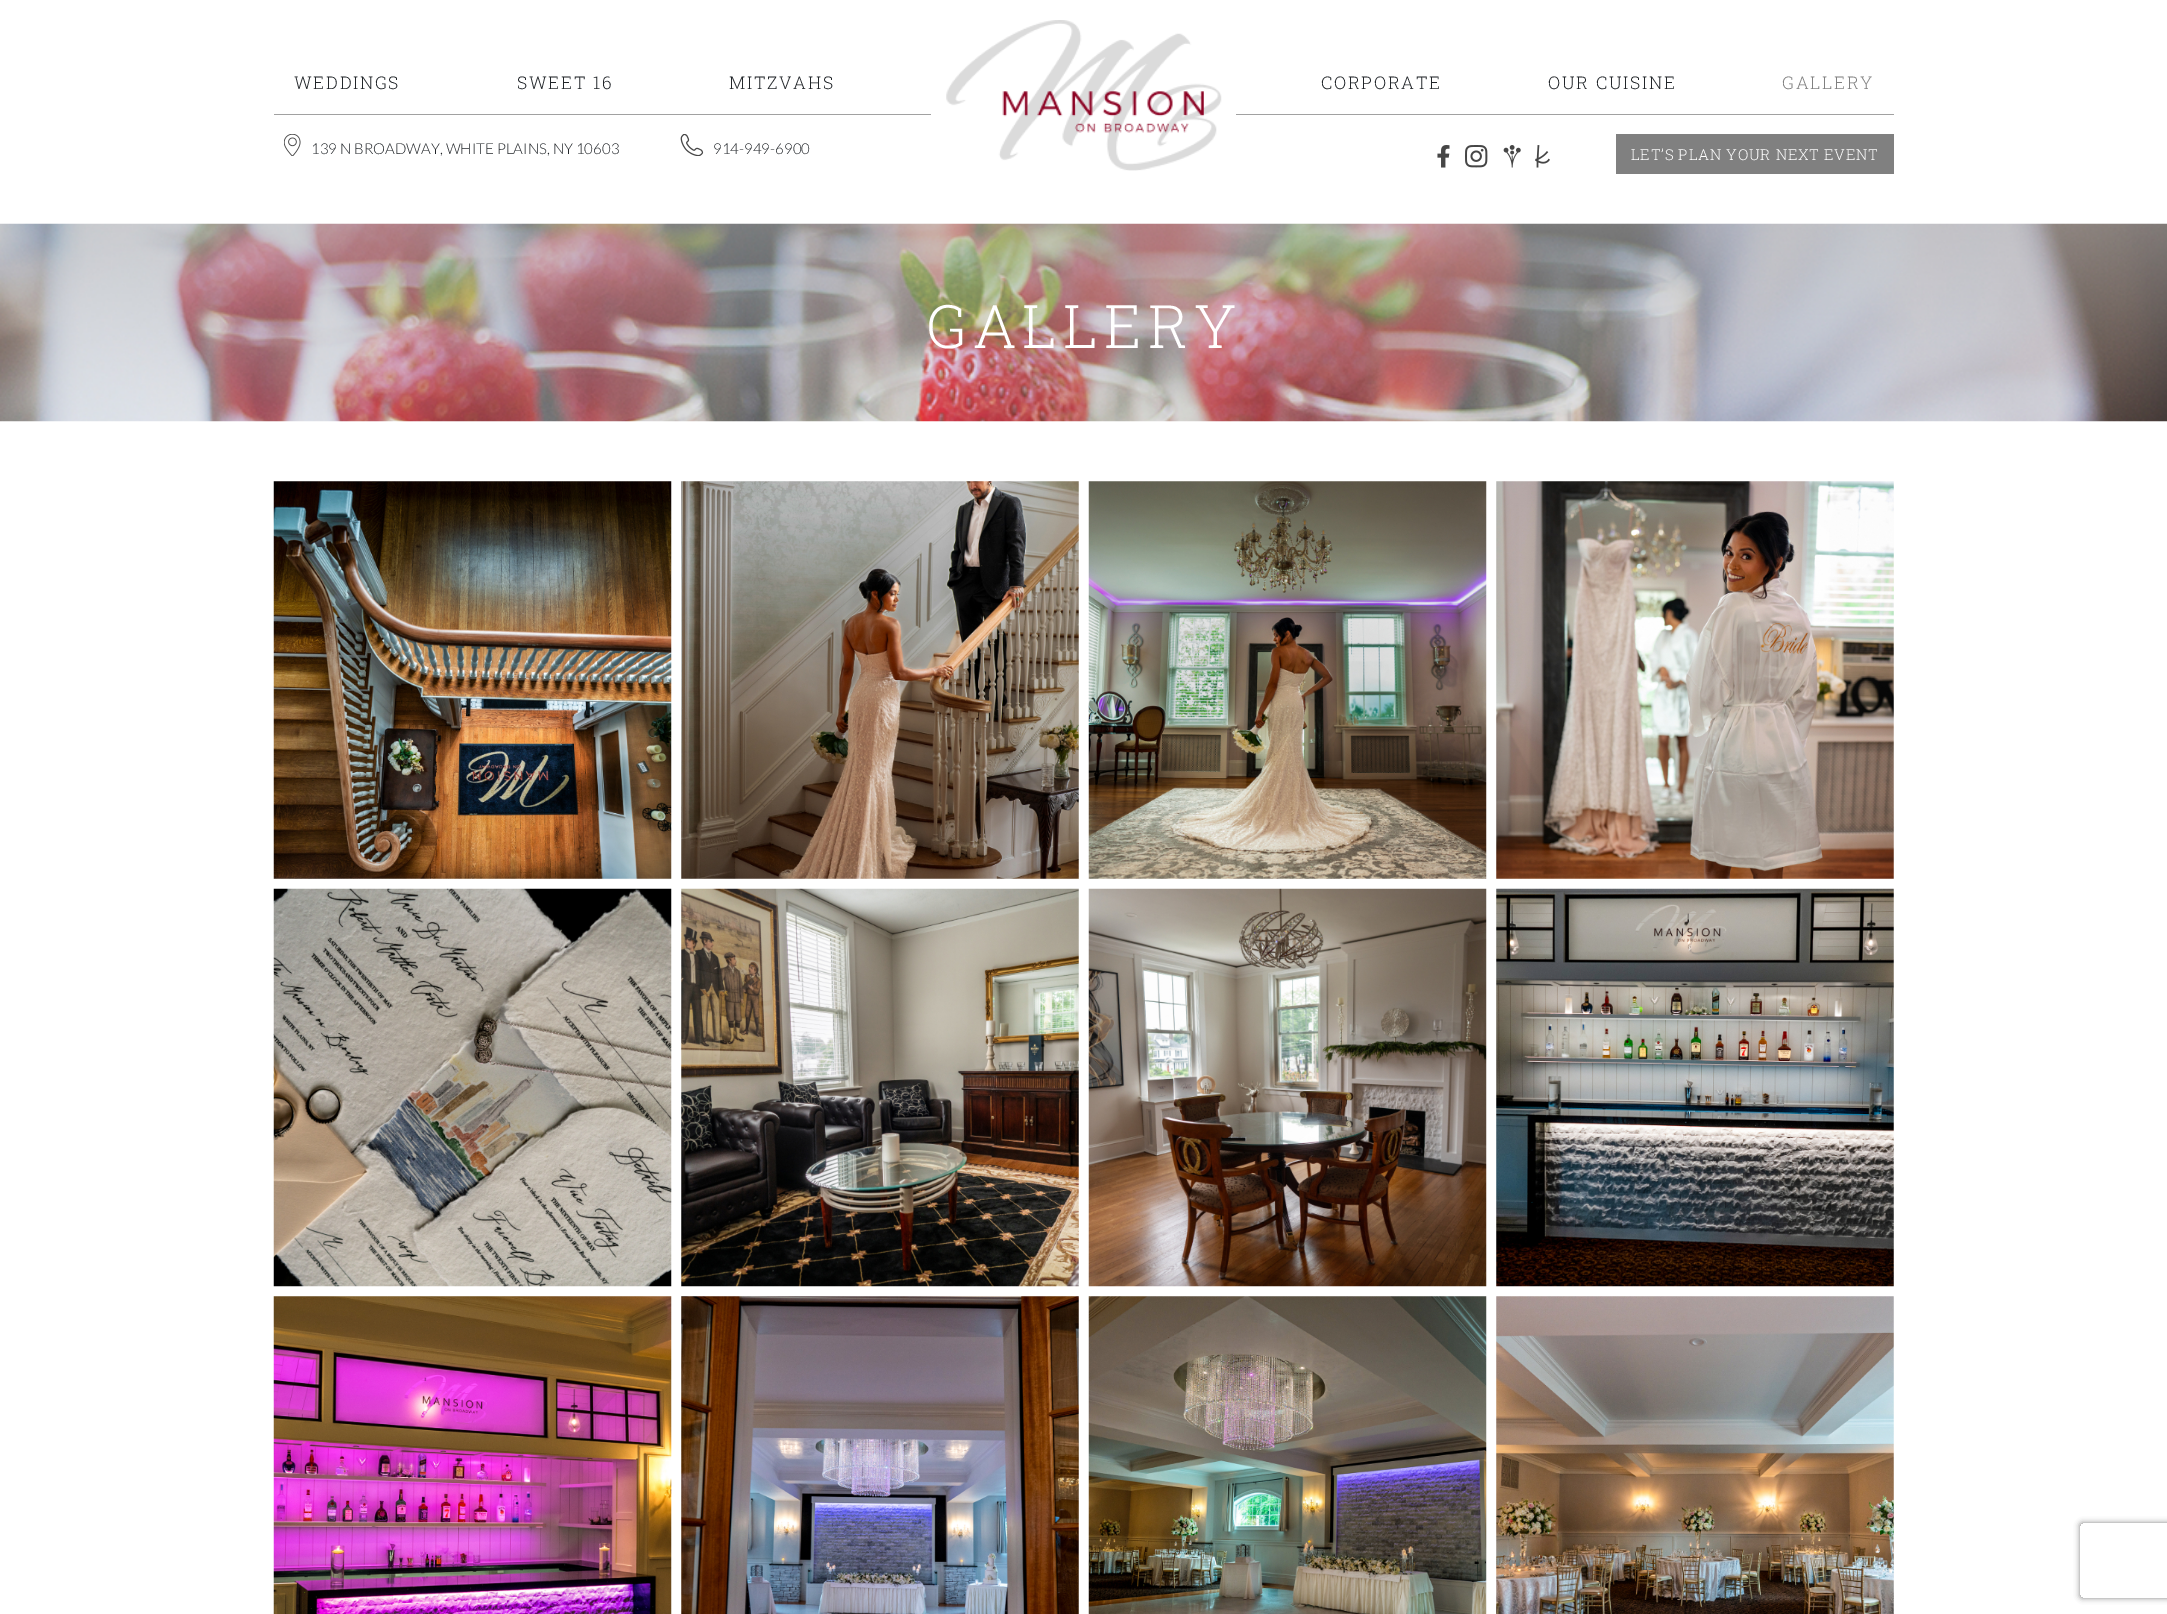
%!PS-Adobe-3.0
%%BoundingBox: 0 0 2167 1614
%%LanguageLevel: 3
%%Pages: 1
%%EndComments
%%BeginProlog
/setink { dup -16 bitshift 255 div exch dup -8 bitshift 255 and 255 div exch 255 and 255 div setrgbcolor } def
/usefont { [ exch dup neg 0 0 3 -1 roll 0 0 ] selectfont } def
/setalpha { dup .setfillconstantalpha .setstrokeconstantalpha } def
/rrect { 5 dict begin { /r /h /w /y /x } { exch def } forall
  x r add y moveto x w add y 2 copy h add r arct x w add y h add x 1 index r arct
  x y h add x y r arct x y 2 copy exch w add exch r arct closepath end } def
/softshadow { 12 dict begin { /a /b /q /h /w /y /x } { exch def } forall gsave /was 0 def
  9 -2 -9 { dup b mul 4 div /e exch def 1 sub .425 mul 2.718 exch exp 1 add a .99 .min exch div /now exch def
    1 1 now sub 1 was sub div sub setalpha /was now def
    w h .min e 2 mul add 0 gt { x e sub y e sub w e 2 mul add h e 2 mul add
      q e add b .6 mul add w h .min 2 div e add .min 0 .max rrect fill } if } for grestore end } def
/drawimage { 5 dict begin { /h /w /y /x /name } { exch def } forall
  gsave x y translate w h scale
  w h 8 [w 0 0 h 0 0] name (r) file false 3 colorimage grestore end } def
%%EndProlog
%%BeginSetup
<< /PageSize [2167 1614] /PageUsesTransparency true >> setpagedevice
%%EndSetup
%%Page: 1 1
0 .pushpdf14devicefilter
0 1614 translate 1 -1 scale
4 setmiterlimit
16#FFFFFF setink
0 0 2167 1614 rectfill
/RobotoSlab-Light 17.5 usefont
16#212529 setink
294 89 moveto 1.75 0 (WEDDINGS) ashow
517 89 moveto 1.75 0 (SWEET 16) ashow
729 89 moveto 1.75 0 (MITZVAHS) ashow
16#A1A1A1 setink
274 114 657 1 rectfill
(img1.raw) 284 134 17 22 drawimage
/Lato-Light 15 usefont
16#212529 setink
311 154 moveto (139 N BROADWAY, WHITE PLAINS, NY 10603) show
(img2.raw) 680 134 24 22 drawimage
713 154 moveto (914-949-6900) show
(img3.raw) 946 20 276 151 drawimage
/RobotoSlab-Light 17.5 usefont
1321 89 moveto 1.75 0 (CORPORATE) ashow
1548 89 moveto 1.75 0 (OUR CUISINE) ashow
16#808080 setink
1782 89 moveto 1.75 0 (GALLERY) ashow
16#A1A1A1 setink
1236 114 658 1 rectfill
(img4.raw) 1437 145 13 23 drawimage
(img5.raw) 1465 145 23 23 drawimage
(img6.raw) 1503 145 18 23 drawimage
(img7.raw) 1535 145 15 23 drawimage
16#808080 setink
1616 134 278 40 rectfill
/RobotoSlab-Light 15 usefont
16#FFFFFF setink
1631 160 moveto 0.75 0 (LET’S PLAN YOUR NEXT EVENT) ashow
(img8.raw) 0 223 2167 199 drawimage
/RobotoSlab-Light 60 usefont
926 348 moveto 6 0 (GALLERY) ashow
(img9.raw) 273 481 399 398 drawimage
(img10.raw) 681 481 398 398 drawimage
(img11.raw) 1088 481 399 398 drawimage
(img12.raw) 1496 481 398 398 drawimage
(img13.raw) 273 888 399 399 drawimage
(img14.raw) 681 888 398 399 drawimage
(img15.raw) 1088 888 399 399 drawimage
(img16.raw) 1496 888 398 399 drawimage
(img17.raw) 273 1296 399 318 drawimage
(img18.raw) 681 1296 398 318 drawimage
(img19.raw) 1088 1296 399 318 drawimage
(img20.raw) 1496 1296 398 318 drawimage
gsave
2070 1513 moveto 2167 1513 lineto 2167 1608 lineto 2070 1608 lineto closepath 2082.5 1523 moveto 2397.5 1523 lineto 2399 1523 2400 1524 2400 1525.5 curveto 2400 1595.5 lineto 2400 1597 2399 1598 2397.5 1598 curveto 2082.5 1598 lineto 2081 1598 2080 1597 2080 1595.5 curveto 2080 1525.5 lineto 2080 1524 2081 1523 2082.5 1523 curveto closepath eoclip newpath
16#808080 setink
2080 1523 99 75 2.5 3 1 softshadow
grestore
.poppdf14devicefilter showpage
%%EOF
